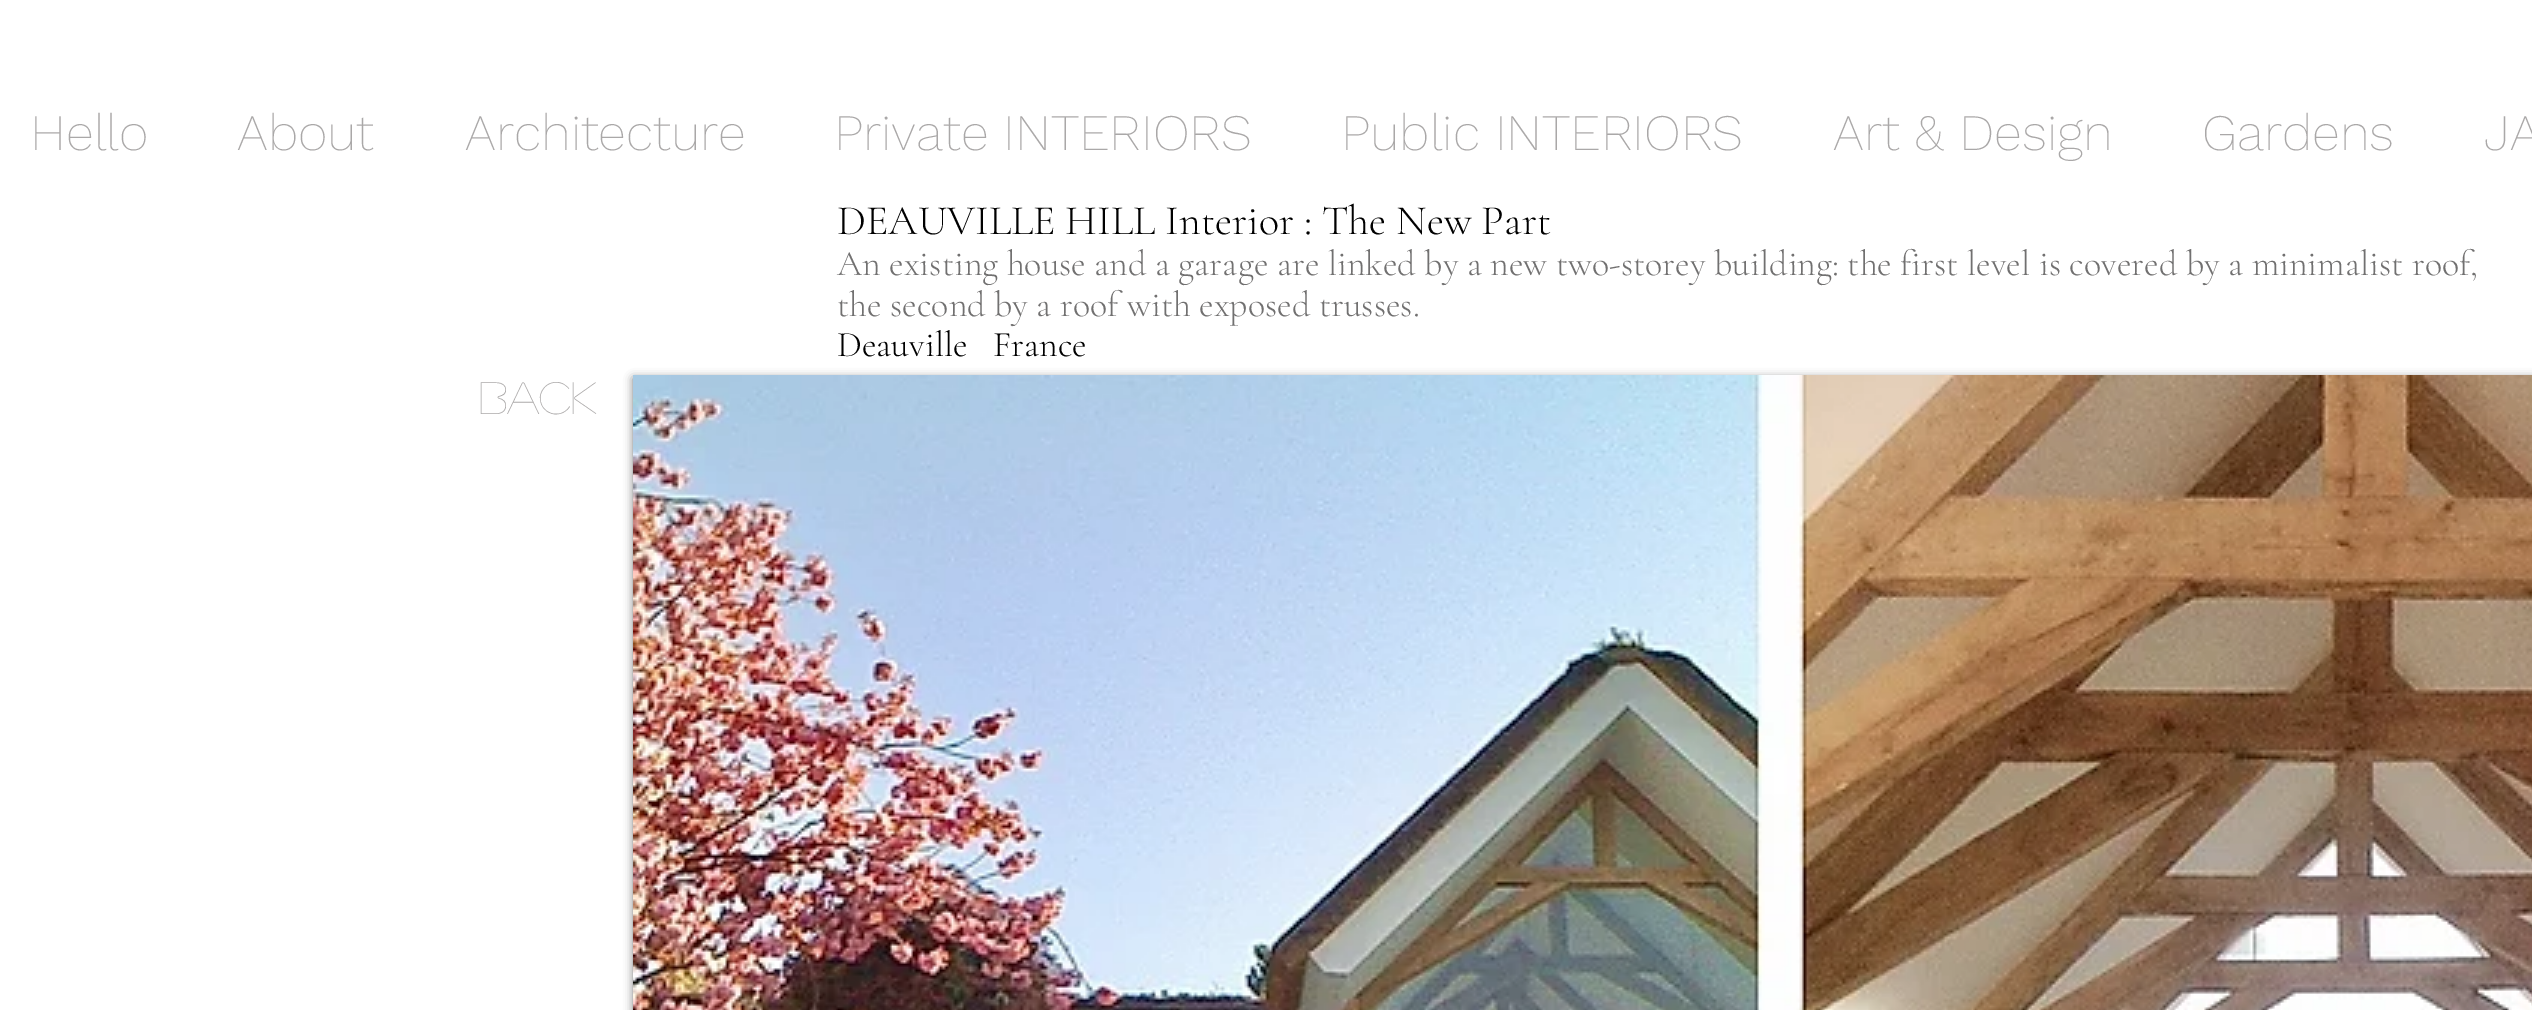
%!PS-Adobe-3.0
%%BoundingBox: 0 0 2532 1010
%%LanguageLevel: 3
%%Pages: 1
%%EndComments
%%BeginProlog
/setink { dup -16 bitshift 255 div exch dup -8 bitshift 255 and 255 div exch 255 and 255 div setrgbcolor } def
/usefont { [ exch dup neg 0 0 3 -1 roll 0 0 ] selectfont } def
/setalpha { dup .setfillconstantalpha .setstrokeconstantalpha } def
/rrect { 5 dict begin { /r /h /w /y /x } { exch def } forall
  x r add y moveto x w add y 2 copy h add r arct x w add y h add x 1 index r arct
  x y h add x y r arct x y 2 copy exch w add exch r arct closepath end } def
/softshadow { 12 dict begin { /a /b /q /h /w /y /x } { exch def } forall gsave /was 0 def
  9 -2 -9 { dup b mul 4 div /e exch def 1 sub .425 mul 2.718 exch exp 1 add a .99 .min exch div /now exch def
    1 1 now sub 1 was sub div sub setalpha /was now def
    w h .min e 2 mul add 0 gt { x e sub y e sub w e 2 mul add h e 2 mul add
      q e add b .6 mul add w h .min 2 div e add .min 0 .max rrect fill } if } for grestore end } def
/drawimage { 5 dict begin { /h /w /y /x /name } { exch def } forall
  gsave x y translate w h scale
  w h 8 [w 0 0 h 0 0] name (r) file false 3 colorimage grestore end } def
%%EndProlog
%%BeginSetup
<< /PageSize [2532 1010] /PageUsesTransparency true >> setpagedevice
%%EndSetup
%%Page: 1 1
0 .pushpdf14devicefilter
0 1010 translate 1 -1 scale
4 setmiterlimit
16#FFFFFF setink
0 0 2532 1010 rectfill
/WorkSans-ExtraLight 51 usefont
16#AAA8A8 setink
[
    [(Hello) 30 150]
    [(About) 237 150]
    [(Architecture) 465 150]
    [(Private INTERIORS) 834 150]
    [(Public INTERIORS) 1341 150]
    [(Art & Design) 1833 150]
    [(Gardens) 2202 150]
    [(JA) 2484 150]
] { aload pop moveto show } forall
/CormorantGaramond-Light 42 usefont
16#000000 setink
837 234 moveto (DEAUVILLE HILL Interior : The New Part) show
/CormorantGaramond-Light 36 usefont
16#717070 setink
837 275 moveto (An existing house and a garage are linked by a new two-storey building: the first level is covered by a minimalist roof,) show
837 316 moveto (the second by a roof with exposed trusses.) show
16#000000 setink
837 356 moveto (Deauville   France) show
/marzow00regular-Regular 45 usefont
16#AAA8A8 setink
479 414 moveto (Back) show
16#000000 setink
633 378 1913 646 0 4.5 0.5 softshadow
(img1.raw) 633 375 1899 635 drawimage
.poppdf14devicefilter showpage
%%EOF
